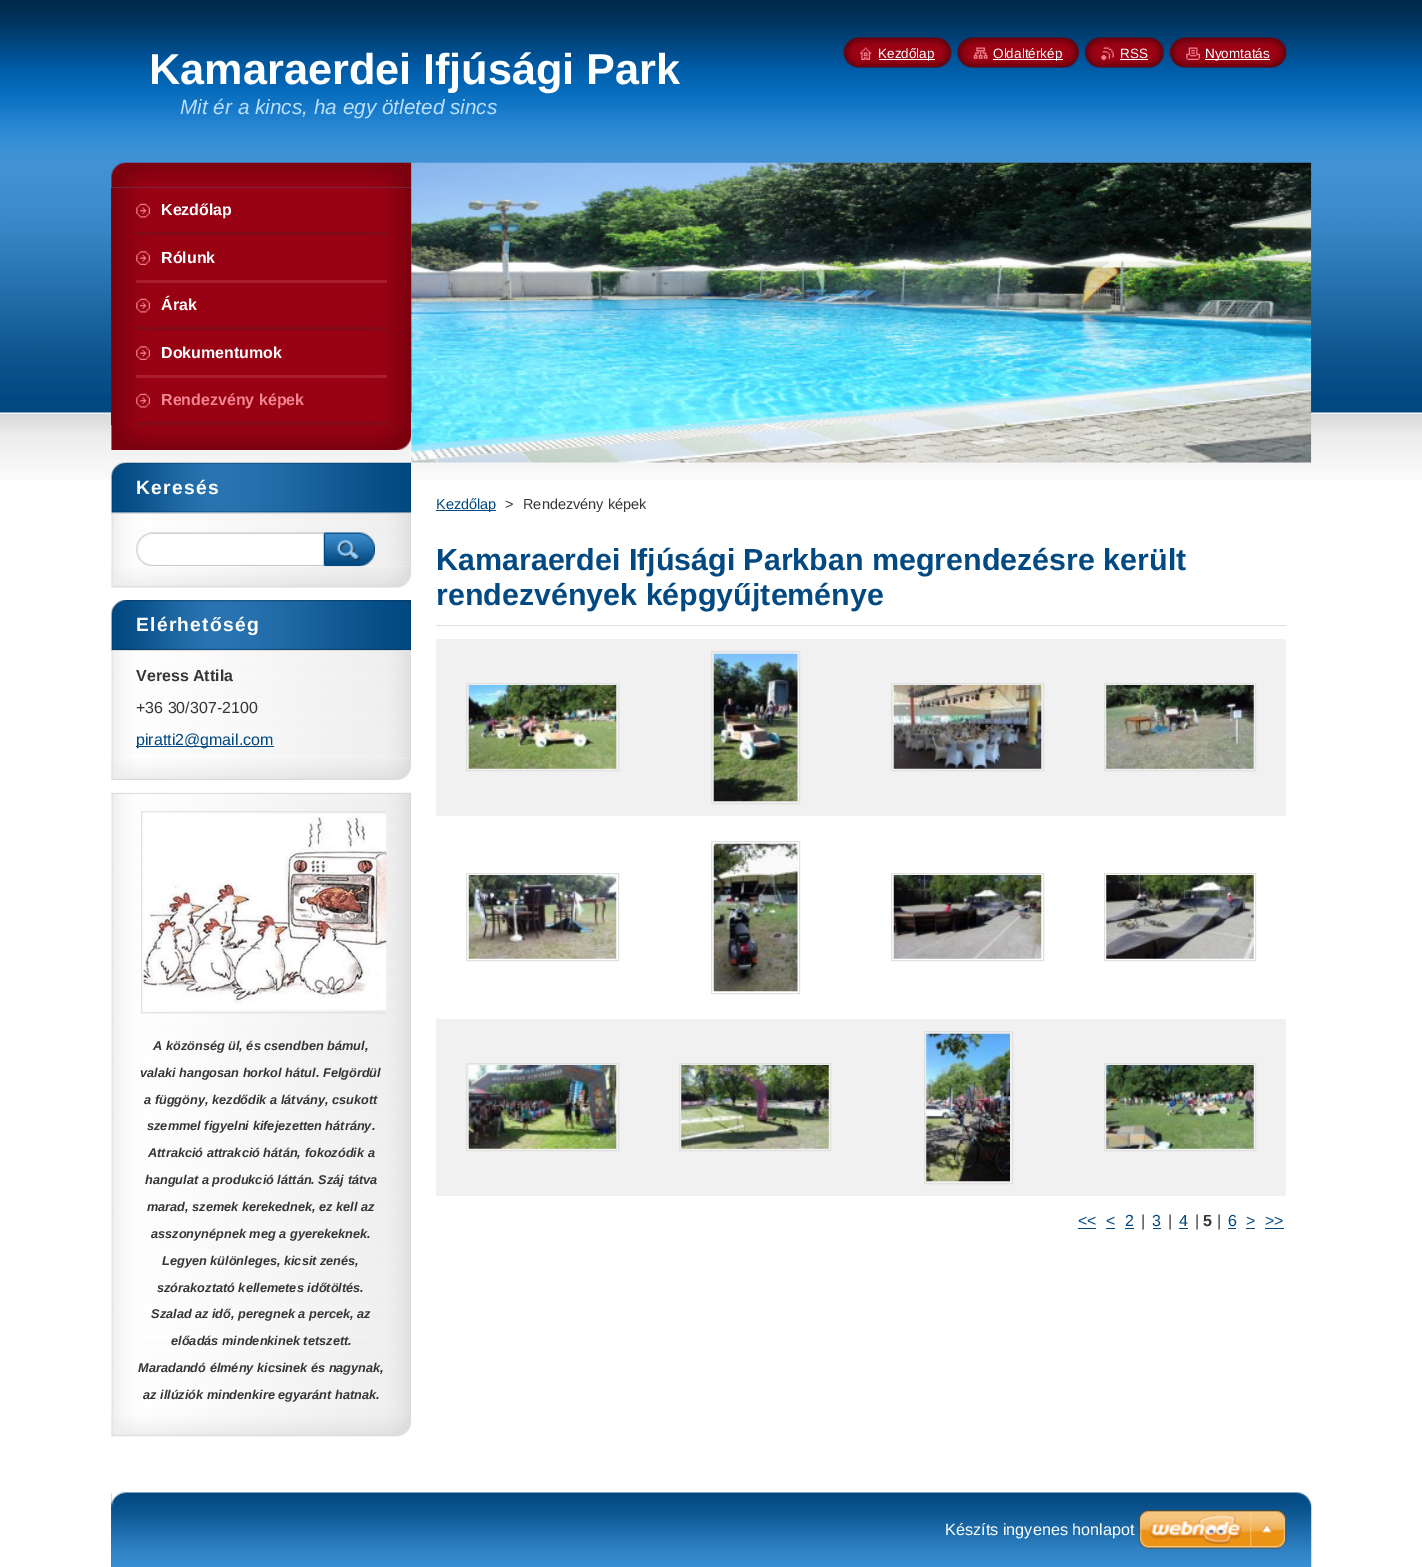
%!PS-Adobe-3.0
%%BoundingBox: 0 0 1422 1567
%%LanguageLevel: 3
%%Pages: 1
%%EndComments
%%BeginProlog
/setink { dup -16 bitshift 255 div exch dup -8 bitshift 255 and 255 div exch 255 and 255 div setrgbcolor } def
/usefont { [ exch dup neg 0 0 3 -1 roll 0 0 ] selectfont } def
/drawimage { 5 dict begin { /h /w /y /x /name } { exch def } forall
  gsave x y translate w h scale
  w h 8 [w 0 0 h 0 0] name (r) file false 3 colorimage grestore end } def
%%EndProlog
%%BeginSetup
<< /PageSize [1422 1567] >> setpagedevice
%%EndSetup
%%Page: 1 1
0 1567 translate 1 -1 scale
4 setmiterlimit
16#FFFFFF setink
0 0 1422 1567 rectfill
(img1.raw) 0 0 1422 480 drawimage
/LiberationSans-Bold 43.25 usefont
149 84 moveto (Kamaraerdei Ifjúsági Park) show
/LiberationSans-Italic 20.75 usefont
16#BAE0FF setink
180 114 moveto (Mit ér a kincs, ha egy ötleted sincs) show
(img2.raw) 843 37 17 31 drawimage
(img3.raw) 860 37 92 31 drawimage
(img4.raw) 860 47 12 13 drawimage
16#FFFFFF setink
879 59 56 1 rectfill
/LiberationSans-Regular 13.5 usefont
878 58 moveto (Kezdőlap) show
(img5.raw) 957 37 17 31 drawimage
(img6.raw) 973 37 106 31 drawimage
(img7.raw) 973 47 15 12 drawimage
993 59 70 1 rectfill
993 58 moveto (Oldaltérkép) show
(img8.raw) 1085 37 17 31 drawimage
(img9.raw) 1101 37 63 31 drawimage
(img10.raw) 1101 47 13 13 drawimage
1120 58 moveto (RSS) show
1120 59 28 1 rectfill
(img11.raw) 1170 37 17 31 drawimage
(img12.raw) 1186 37 101 31 drawimage
(img13.raw) 1186 47 14 13 drawimage
1205 59 65 1 rectfill
1205 58 moveto (Nyomtatás) show
(img14.raw) 111 162 301 26 drawimage
(img15.raw) 111 425 301 25 drawimage
16#9D0214 setink
111 188 1 237 rectfill
(img16.raw) 111 187 301 238 drawimage
16#810A19 setink
136 232 251 3 rectfill
(img17.raw) 136 203 14 15 drawimage
/LiberationSans-Bold 16 usefont
16#FFFFFF setink
161 215 moveto (Kezdőlap) show
16#AA1D2E setink
136 280 251 3 rectfill
(img18.raw) 136 251 14 14 drawimage
16#FFFFFF setink
161 263 moveto (Rólunk) show
16#810A19 setink
136 327 251 3 rectfill
(img19.raw) 136 298 14 15 drawimage
16#FFFFFF setink
161 310 moveto (Árak) show
16#AA1D2E setink
136 375 251 3 rectfill
(img20.raw) 136 346 14 14 drawimage
16#FFFFFF setink
161 358 moveto (Dokumentumok) show
16#810A19 setink
136 422 251 3 rectfill
(img21.raw) 136 393 14 15 drawimage
16#F38491 setink
161 405 moveto (Rendezvény képek) show
(img22.raw) 111 566 300 22 drawimage
(img24.raw) 111 512 300 54 drawimage
(img23.raw) 111 462 300 51 drawimage
/LiberationSans-Bold 19.25 usefont
16#FFFFFF setink
136 494 moveto 1.25 0 (Keresés) ashow
16#DBDBDB setink
111 513 300 1 rectfill
(img25.raw) 136 532 189 34 drawimage
(img26.raw) 323 532 52 35 drawimage
(img27.raw) 111 758 300 22 drawimage
(img28.raw) 111 600 300 50 drawimage
16#FFFFFF setink
136 631 moveto 1.25 0 (Elérhetőség) ashow
(img29.raw) 111 651 300 108 drawimage
16#DBDBDB setink
111 650 300 1 rectfill
/LiberationSans-Bold 16 usefont
16#363636 setink
136 681 moveto (Veress Attila) show
/LiberationSans-Regular 16 usefont
136 713 moveto (+36 30/307-2100) show
16#024981 setink
136 746 138 1 rectfill
136 745 moveto (piratti2@gmail.com) show
(img30.raw) 111 1415 300 22 drawimage
(img31.raw) 111 792 300 623 drawimage
16#DBDBDB setink
111 793 300 1 rectfill
gsave
136 794 250 621 rectclip
16#E0E2E6 setink
141.5 811.5 273 201 rectstroke
grestore
(img32.raw) 143 813 244 197 drawimage
/LiberationSans-BoldItalic 12.75 usefont
16#363636 setink
[
    [(A közönség ül, és csendben bámul,) 153 1050]
    [(valaki hangosan horkol hátul. Felgördül) 140 1077]
    [(a függöny, kezdődik a látvány, csukott) 144 1104]
    [(szemmel figyelni kifejezetten hátrány.) 147 1130]
    [(Attrakció attrakció hátán, fokozódik a) 148 1157]
    [(hangulat a produkció láttán. Száj tátva) 145 1184]
    [(marad, szemek kerekednek, ez kell az) 147 1211]
    [(asszonynépnek meg a gyerekeknek.) 151 1238]
    [(Legyen különleges, kicsit zenés,) 162 1265]
    [(szórakoztató kellemetes időtöltés.) 157 1292]
    [(Szalad az idő, peregnek a percek, az) 151 1318]
    [(előadás mindenkinek tetszett.) 171 1345]
    [(Maradandó élmény kicsinek és nagynak,) 138 1372]
    [(az illúziók mindenkire egyaránt hatnak.) 143 1399]
] { aload pop moveto show } forall
(img33.raw) 411 162 901 301 drawimage
16#024981 setink
436 510 60 1 rectfill
/LiberationSans-Regular 14.5 usefont
436 509 moveto (Kezdőlap) show
16#363636 setink
505 509 moveto (>) show
523 509 moveto (Rendezvény képek) show
16#E1E1E1 setink
436 625 850 1 rectfill
/LiberationSans-Bold 30.4 usefont
16#024981 setink
436 570 moveto (Kamaraerdei Ifjúsági Parkban megrendezésre került) show
436 605 moveto (rendezvények képgyűjteménye) show
16#F1F1F1 setink
436 639 850 177 rectfill
16#E1E1E1 setink
466.5 683.5 152 87 rectstroke
(img34.raw) 468 685 149 84 drawimage
711.5 651.5 88 152 rectstroke
(img35.raw) 713 653 85 149 drawimage
891.5 683.5 152 87 rectstroke
(img36.raw) 893 685 149 84 drawimage
1104.5 683.5 151 87 rectstroke
(img37.raw) 1106 685 148 84 drawimage
466.5 873.5 152 87 rectstroke
(img38.raw) 468 875 149 84 drawimage
711.5 841.5 88 152 rectstroke
(img39.raw) 713 843 85 149 drawimage
891.5 873.5 152 87 rectstroke
(img40.raw) 893 875 149 84 drawimage
1104.5 873.5 151 87 rectstroke
(img41.raw) 1106 875 148 84 drawimage
16#F1F1F1 setink
436 1019 850 177 rectfill
16#E1E1E1 setink
466.5 1063.5 152 87 rectstroke
(img42.raw) 468 1065 149 84 drawimage
679.5 1063.5 151 87 rectstroke
(img43.raw) 681 1065 148 84 drawimage
924.5 1031.5 88 152 rectstroke
(img44.raw) 926 1033 84 149 drawimage
1104.5 1063.5 151 87 rectstroke
(img45.raw) 1106 1065 148 84 drawimage
/LiberationSans-Regular 16 usefont
16#024981 setink
1078 1226 moveto (<<) show
1078 1228 18 1 rectfill
1106 1226 moveto (<) show
1106 1228 9 1 rectfill
1125 1226 moveto (2) show
1125 1228 9 1 rectfill
16#363636 setink
1141 1226 moveto (|) show
16#024981 setink
1152 1226 moveto (3) show
1153 1228 8 1 rectfill
16#363636 setink
1168 1226 moveto (|) show
16#024981 setink
1179 1226 moveto (4) show
1179 1228 9 1 rectfill
16#363636 setink
1195 1226 moveto (|) show
/LiberationSans-Bold 16 usefont
1203 1226 moveto (5) show
/LiberationSans-Regular 16 usefont
1217 1226 moveto (|) show
16#024981 setink
1228 1226 moveto (6) show
1228 1228 8 1 rectfill
1246 1226 moveto (>) show
1246 1228 9 1 rectfill
1265 1226 moveto (>>) show
1265 1228 19 1 rectfill
(img46.raw) 111 1492 1201 75 drawimage
/LiberationSans-Regular 16.25 usefont
16#FFFFFF setink
945 1535 moveto (Készíts ingyenes honlapot) show
(img47.raw) 1138 1510 149 39 drawimage
showpage
%%EOF
